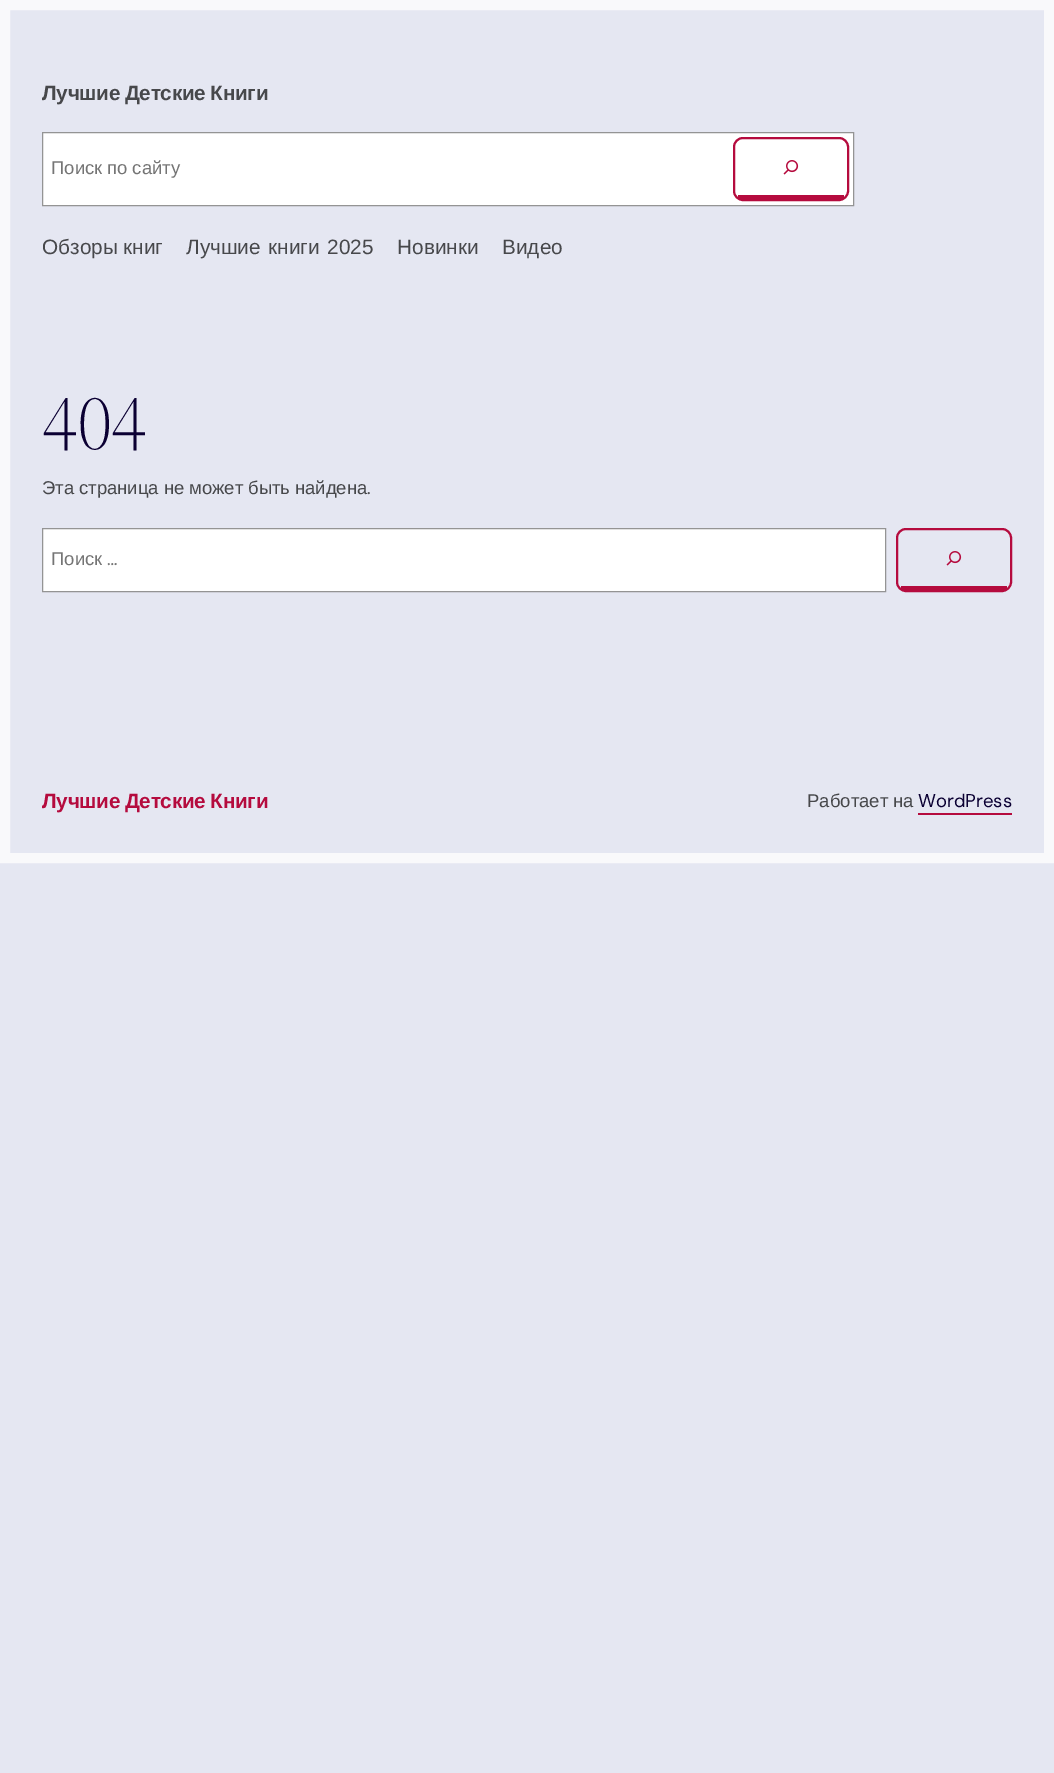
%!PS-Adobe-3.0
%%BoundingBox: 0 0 1054 1773
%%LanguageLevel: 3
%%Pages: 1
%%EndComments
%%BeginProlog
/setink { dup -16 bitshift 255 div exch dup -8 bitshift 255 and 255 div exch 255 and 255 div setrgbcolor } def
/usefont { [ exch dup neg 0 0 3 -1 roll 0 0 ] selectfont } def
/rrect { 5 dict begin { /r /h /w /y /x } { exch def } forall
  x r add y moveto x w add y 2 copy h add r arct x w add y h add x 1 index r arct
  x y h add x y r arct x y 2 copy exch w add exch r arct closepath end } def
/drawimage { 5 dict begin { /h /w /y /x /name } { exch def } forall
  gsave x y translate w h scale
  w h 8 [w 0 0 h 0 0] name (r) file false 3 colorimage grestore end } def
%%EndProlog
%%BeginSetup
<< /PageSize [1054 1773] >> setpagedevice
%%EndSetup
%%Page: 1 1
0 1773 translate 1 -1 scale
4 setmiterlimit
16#E5E7F2 setink
0 0 1054 1773 rectfill
16#F9F9FB setink
10 setlinewidth
5 5 1044 853 rectstroke
/LiberationSans-Bold 20.75 usefont
16#47484B setink
42 100 moveto -1 0 32 -0.25 0 (Лучшие Детские Книги) awidthshow
16#FFFFFF setink
42.5 132.5 moveto 853.5 132.5 lineto 853.5 205.5 lineto 42.5 205.5 lineto closepath gsave fill grestore
16#949494 setink
1 setlinewidth
stroke
/LiberationSans-Regular 18.5 usefont
16#757575 setink
51 174 moveto -0.25 0 32 (Поиск по сайту) widthshow
16#B50B3E setink
2 setlinewidth
734 138 114 62 9 rrect stroke
738 195 106 4 rectfill
(img1.raw) 783 160 16 15 drawimage
/LiberationSans-Regular 20.75 usefont
16#47484B setink
42 254 moveto (Обзоры книг) show
186 254 moveto 2 0 32 (Лучшие книги 2025) widthshow
397 254 moveto (Новинки) show
502 254 moveto (Видео) show
/SourceSerif4-Light 77 usefont
16#0B0033 setink
42 449 moveto -1 0 (404) ashow
/LiberationSans-Regular 18.5 usefont
16#47484B setink
42 494 moveto -0.25 0 32 (Эта страница не может быть найдена) widthshow
/DMSans-Regular 18.5 usefont
367 494 moveto (.) show
16#FFFFFF setink
42.5 528.5 moveto 885.5 528.5 lineto 885.5 591.5 lineto 42.5 591.5 lineto closepath gsave fill grestore
16#949494 setink
1 setlinewidth
stroke
/LiberationSans-Regular 18.5 usefont
16#757575 setink
51 565 moveto (Поиск) show
/DMSans-Regular 18.5 usefont
107 565 moveto (…) show
16#B50B3E setink
2 setlinewidth
897 529 114 62 9 rrect stroke
901 586 106 4 rectfill
(img2.raw) 946 551 16 15 drawimage
/LiberationSans-Bold 20.75 usefont
42 808 moveto -1 0 32 -0.25 0 (Лучшие Детские Книги) awidthshow
/LiberationSans-Regular 18.5 usefont
16#47484B setink
807 807 moveto -0.25 0 32 (Работает на) widthshow
/DMSans-Regular 18.5 usefont
16#0B0033 setink
918 807 moveto (WordPress) show
16#B50B3E setink
918 813 94 2 rectfill
showpage
%%EOF
